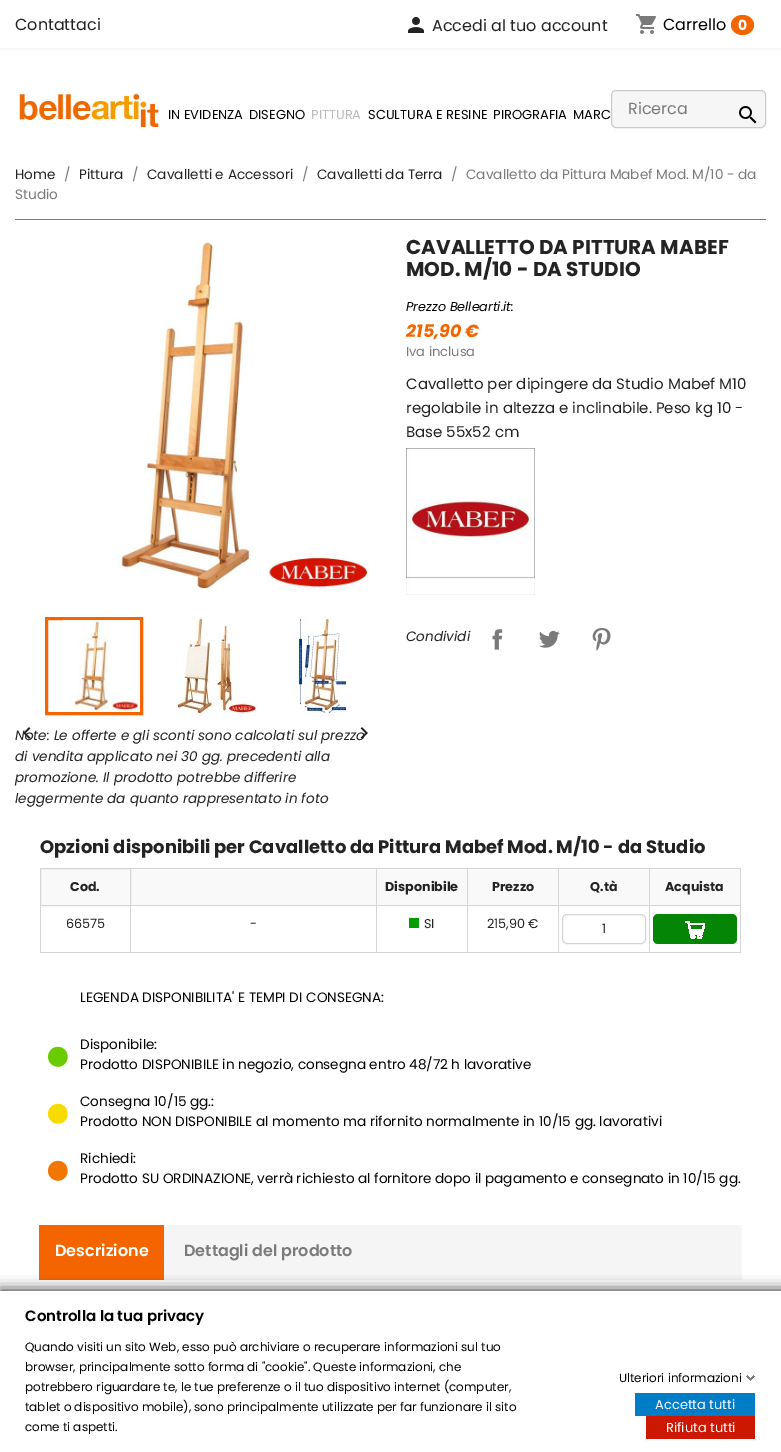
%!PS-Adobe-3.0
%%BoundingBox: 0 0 781 1452
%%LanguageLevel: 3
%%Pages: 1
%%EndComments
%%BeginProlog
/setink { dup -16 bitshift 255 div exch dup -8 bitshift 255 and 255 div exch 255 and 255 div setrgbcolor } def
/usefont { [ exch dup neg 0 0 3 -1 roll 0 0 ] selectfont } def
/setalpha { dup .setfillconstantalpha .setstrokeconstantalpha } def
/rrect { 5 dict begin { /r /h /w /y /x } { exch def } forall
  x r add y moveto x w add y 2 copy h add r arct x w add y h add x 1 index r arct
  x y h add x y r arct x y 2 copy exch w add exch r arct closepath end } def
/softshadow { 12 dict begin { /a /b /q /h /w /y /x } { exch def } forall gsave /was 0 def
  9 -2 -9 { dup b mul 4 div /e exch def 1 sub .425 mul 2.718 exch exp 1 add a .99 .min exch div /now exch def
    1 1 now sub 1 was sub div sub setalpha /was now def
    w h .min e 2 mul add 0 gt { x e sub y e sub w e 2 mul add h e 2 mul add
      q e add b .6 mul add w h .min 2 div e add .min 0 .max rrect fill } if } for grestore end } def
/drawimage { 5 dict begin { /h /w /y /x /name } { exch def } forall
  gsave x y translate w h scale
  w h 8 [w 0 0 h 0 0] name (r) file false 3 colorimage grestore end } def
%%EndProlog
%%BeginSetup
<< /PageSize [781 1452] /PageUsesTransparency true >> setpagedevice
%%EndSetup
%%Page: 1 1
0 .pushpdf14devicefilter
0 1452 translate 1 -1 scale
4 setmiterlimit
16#FFFFFF setink
0 0 781 1452 rectfill
16#F6F6F6 setink
0 48 781 2 rectfill
/Poppins-Regular 16 usefont
16#232323 setink
15 30 moveto (Contattaci) show
(img1.raw) 408 17 16 16 drawimage
432 31 moveto (Accedi al tuo account) show
(img2.raw) 636 14 20 20 drawimage
16#000000 setink
663 30 moveto (Carrello) show
16#F46500 setink
742.5 15 moveto 749 15 754 19.5 754 25 curveto 754 30.5 749 35 742.5 35 curveto 736 35 731 30.5 731 25 curveto 731 19.5 736 15 742.5 15 curveto closepath fill
/Poppins-Bold 14 usefont
16#FFFFFF setink
738 30 moveto (0) show
(img3.raw) 19 93 141 35 drawimage
/Poppins-Regular 13 usefont
16#000000 setink
168 119 moveto (IN EVIDENZA) show
249 119 moveto (DISEGNO) show
16#BCBCBC setink
311 119 moveto (PITTURA) show
16#000000 setink
[
    [(SCULTURA E RESINE) 368 119]
    [(PIROGRAFIA) 493 119]
    [(MARC) 573 119]
] { aload pop moveto show } forall
16#F6F6F6 setink
611.5 90.5 154 37 4.5 rrect gsave fill grestore
16#CCCCCC setink
stroke
/Poppins-Regular 16 usefont
16#7A7A7A setink
628 114 moveto (Ricerca) show
(img4.raw) 739 106 18 18 drawimage
16#7B7B7B setink
15 219 751 1 rectfill
/Poppins-Regular 13.6 usefont
16#232323 setink
15 179 moveto (Home) show
16#7A7A7A setink
64 179 moveto (/) show
16#232323 setink
79 179 moveto (Pittura) show
16#7A7A7A setink
132 179 moveto (/) show
16#232323 setink
147 179 moveto (Cavalletti e Accessori) show
16#7A7A7A setink
302 179 moveto (/) show
16#232323 setink
317 179 moveto (Cavalletti da Terra) show
16#7A7A7A setink
[
    [(/) 451 179]
    [(Cavalletto da Pittura Mabef Mod. M/10 - da) 466 179]
    [(Studio) 15 199]
] { aload pop moveto show } forall
/Poppins-Bold 20 usefont
16#232323 setink
406 254 moveto (CAVALLETTO DA PITTURA MABEF) show
406 276 moveto (MOD. M/10 - DA STUDIO) show
/Poppins-Italic 12.75 usefont
16#000000 setink
406 311 moveto (Prezzo Bellearti.it:) show
/Poppins-BoldItalic 17.5 usefont
16#F46500 setink
406 337 moveto (215,90 €) show
/Poppins-Regular 13 usefont
16#7A7A7A setink
406 356 moveto (Iva inclusa) show
/Poppins-Regular 15 usefont
16#232323 setink
[
    [(Cavalletto per dipingere da Studio Mabef M10) 406 389]
    [(regolabile in altezza e inclinabile. Peso kg 10 -) 406 413]
    [(Base 55x52 cm) 406 437]
] { aload pop moveto show } forall
(img5.raw) 406 448 129 147 drawimage
/Poppins-Italic 13.6 usefont
406 641 moveto (Condividi) show
(img6.raw) 492 629 11 21 drawimage
(img7.raw) 539 630 21 18 drawimage
(img8.raw) 592 628 19 23 drawimage
(img9.raw) 116 236 253 354 drawimage
16#F46500 setink
3 setlinewidth
46.5 618.5 95 95 rectstroke
(img10.raw) 176 617 81 97 drawimage
(img11.raw) 292 617 54 96 drawimage
(img12.raw) 63 620 76 91 drawimage
16#232323 setink
15 740 moveto (Note: Le offerte e gli sconti sono calcolati sul prezzo) show
(img13.raw) 23 727 8 12 drawimage
(img14.raw) 360 727 8 12 drawimage
[
    [(di vendita applicato nei 30 gg. precedenti alla) 15 761]
    [(promozione. Il prodotto potrebbe differire) 15 782]
    [(leggermente da quanto rappresentato in foto) 15 803]
] { aload pop moveto show } forall
/Poppins-Bold 18 usefont
40 853 moveto (Opzioni disponibili per Cavalletto da Pittura Mabef Mod. M/10 - da Studio) show
[
    [131 869 245 36 16#F9F9F9]
    [131 868 610 1 16#D6D4D4]
    [376 868 1 84 16#D6D4D4]
    [131 905 246 1 16#D6D4D4]
] { aload pop setink rectfill } forall
16#F9F9F9 setink
40.5 868.5 moveto 130.5 868.5 lineto 130.5 905.5 lineto 40.5 905.5 lineto closepath gsave fill grestore
16#D6D4D4 setink
1 setlinewidth
stroke
/Poppins-Bold 12.75 usefont
16#232323 setink
70 891 moveto (Cod.) show
[
    [377 869 90 36 16#F9F9F9]
    [467 868 1 84 16#D6D4D4]
    [377 905 91 1 16#D6D4D4]
] { aload pop setink rectfill } forall
16#232323 setink
385 891 moveto (Disponibile) show
[
    [468 869 90 36 16#F9F9F9]
    [558 868 1 84 16#D6D4D4]
    [468 905 91 1 16#D6D4D4]
] { aload pop setink rectfill } forall
16#232323 setink
492 891 moveto (Prezzo) show
[
    [559 869 90 36 16#F9F9F9]
    [649 868 1 84 16#D6D4D4]
    [559 905 91 1 16#D6D4D4]
] { aload pop setink rectfill } forall
16#232323 setink
590 891 moveto (Q.tà) show
[
    [650 869 90 36 16#F9F9F9]
    [740 868 1 84 16#D6D4D4]
    [650 905 91 1 16#D6D4D4]
] { aload pop setink rectfill } forall
16#232323 setink
665 891 moveto (Acquista) show
[
    [40 952 701 1 16#D6D4D4]
    [130 906 1 46 16#D6D4D4]
    [40 906 1 46 16#D6D4D4]
] { aload pop setink rectfill } forall
/Poppins-Regular 12.75 usefont
16#232323 setink
66 928 moveto (66575) show
250 928 moveto (-) show
16#009E00 setink
409 918 10 10 rectfill
16#232323 setink
424 928 moveto (SI) show
487 928 moveto (215,90 €) show
16#D6D4D4 setink
562.5 914.5 83 29 4.5 rrect stroke
16#000000 setink
602 933 moveto (1) show
16#058505 setink
653 914 84 30 5 rrect fill
(img15.raw) 685 921 20 18 drawimage
/Poppins-Regular 13.6 usefont
16#000000 setink
80 1002 moveto (LEGENDA DISPONIBILITA' E TEMPI DI CONSEGNA:) show
(img16.raw) 48 1046 20 21 drawimage
80 1049 moveto (Disponibile:) show
80 1069 moveto (Prodotto DISPONIBILE in negozio, consegna entro 48/72 h lavorative) show
(img17.raw) 48 1103 20 21 drawimage
[
    [(Consegna 10/15 gg.:) 80 1106]
    [(Prodotto NON DISPONIBILE al momento ma rifornito normalmente in 10/15 gg. lavorativi) 80 1126]
    [(Richiedi:) 80 1163]
] { aload pop moveto show } forall
(img18.raw) 48 1160 20 21 drawimage
80 1183 moveto (Prodotto SU ORDINAZIONE, verrà richiesto al fornitore dopo il pagamento e consegnato in 10/15 gg.) show
16#F5F5F5 setink
164 1225 578 55 rectfill
16#F46500 setink
39 1225 125 55 rectfill
/Poppins-SemiBold 16 usefont
16#FFFFFF setink
55 1256 moveto (Descrizione) show
16#7A7A7A setink
184 1256 moveto (Dettagli del prodotto) show
16#121212 setink
0 1291 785 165 0 7 1 softshadow
16#FFFFFF setink
0 1291 781 161 rectfill
/Poppins-SemiBold 15 usefont
16#000000 setink
25 1321 moveto (Controlla la tua privacy) show
/Poppins-Regular 12 usefont
[
    [(Quando visiti un sito Web, esso può archiviare o recuperare informazioni sul tuo) 25 1351]
    [(browser, principalmente sotto forma di "cookie". Queste informazioni, che) 25 1371]
    [(potrebbero riguardare te, le tue preferenze o il tuo dispositivo internet \(computer,) 25 1391]
    [(tablet o dispositivo mobile\), sono principalmente utilizzate per far funzionare il sito) 25 1411]
    [(come ti aspetti.) 25 1431]
    [(Ulteriori informazioni) 619 1382]
] { aload pop moveto show } forall
(img19.raw) 746 1375 9 6 drawimage
16#007DC6 setink
635 1393 120 23 rectfill
/Poppins-Regular 13 usefont
16#FFFFFF setink
655 1409 moveto (Accetta tutti) show
16#CC1800 setink
646 1416 109 23 rectfill
16#FFFFFF setink
666 1432 moveto (Rifiuta tutti) show
.poppdf14devicefilter showpage
%%EOF
